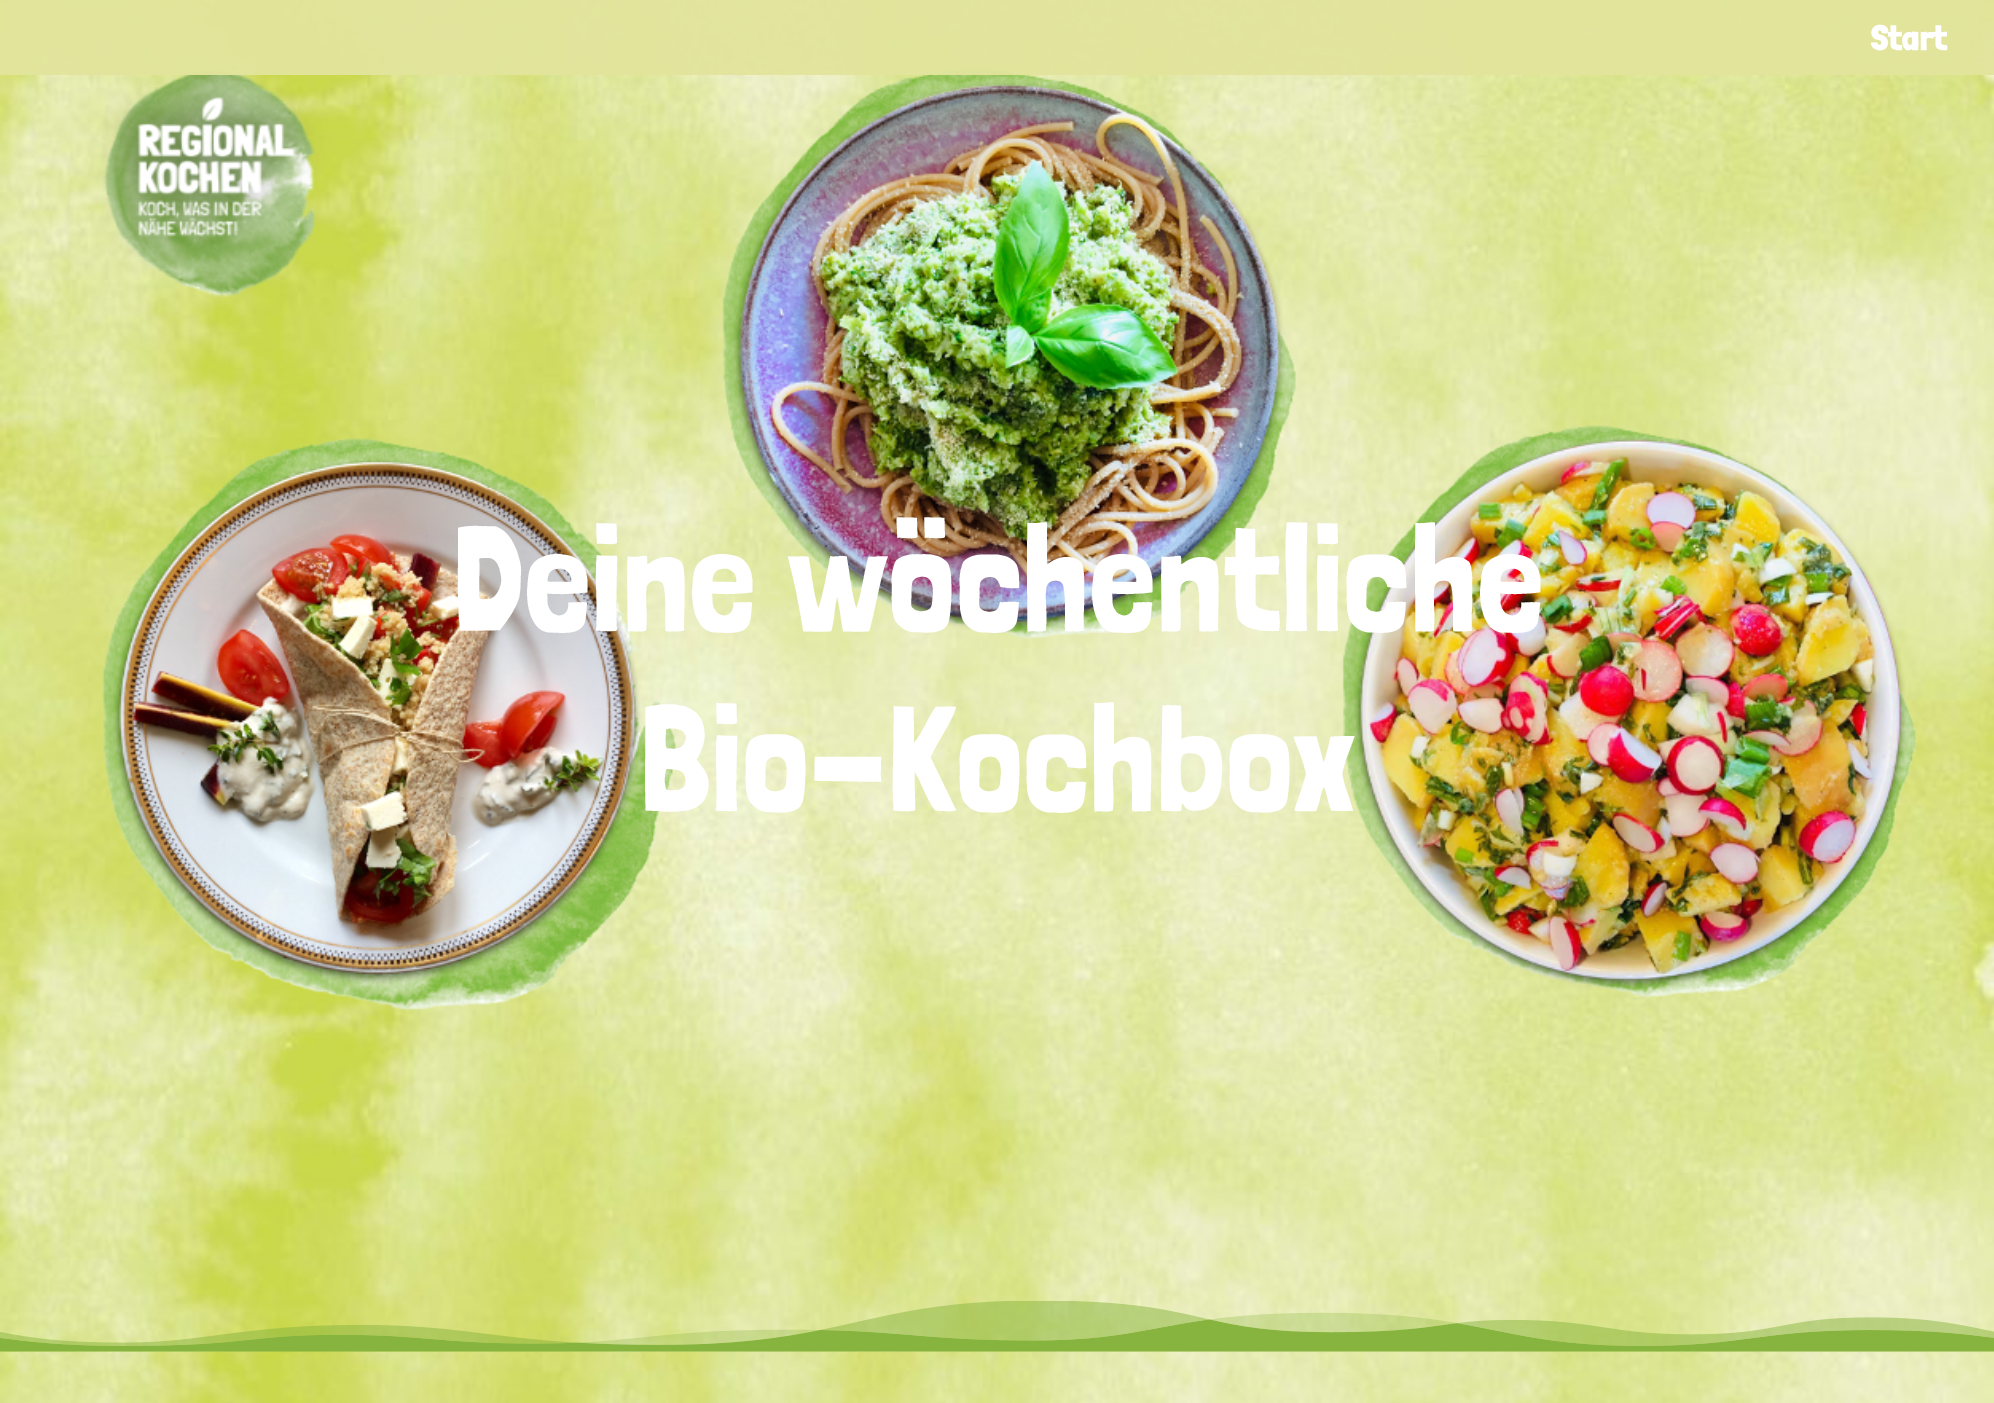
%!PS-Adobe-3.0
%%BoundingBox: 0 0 1994 1403
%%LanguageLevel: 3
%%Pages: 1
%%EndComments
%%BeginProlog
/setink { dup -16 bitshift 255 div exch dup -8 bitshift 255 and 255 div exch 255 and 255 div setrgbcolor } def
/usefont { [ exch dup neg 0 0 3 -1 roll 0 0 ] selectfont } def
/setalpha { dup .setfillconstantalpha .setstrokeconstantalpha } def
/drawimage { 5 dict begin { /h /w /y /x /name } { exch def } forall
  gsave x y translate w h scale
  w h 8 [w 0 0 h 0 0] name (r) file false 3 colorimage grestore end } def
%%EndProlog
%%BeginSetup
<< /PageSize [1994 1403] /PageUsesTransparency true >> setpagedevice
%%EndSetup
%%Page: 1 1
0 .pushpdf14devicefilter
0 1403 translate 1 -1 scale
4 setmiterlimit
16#FFFFFF setink
0 0 1994 1403 rectfill
(img1.raw) 0 0 1994 1352 drawimage
(img2.raw) 102 66 1814 945 drawimage
0.95 setalpha
16#E2E49C setink
0 0 1994 75 rectfill
/LondrinaSolid-Black 36 usefont
1 setalpha
16#FFFFFF setink
1871 50 moveto (Start) show
/LondrinaSolid-Regular 150 usefont
452 631 moveto (Deine wöchentliche) show
639 811 moveto (Bio-Kochbox) show
(img4.raw) 0 1351 1994 52 drawimage
(img3.raw) 0 1301 1994 51 drawimage
.poppdf14devicefilter showpage
%%EOF
